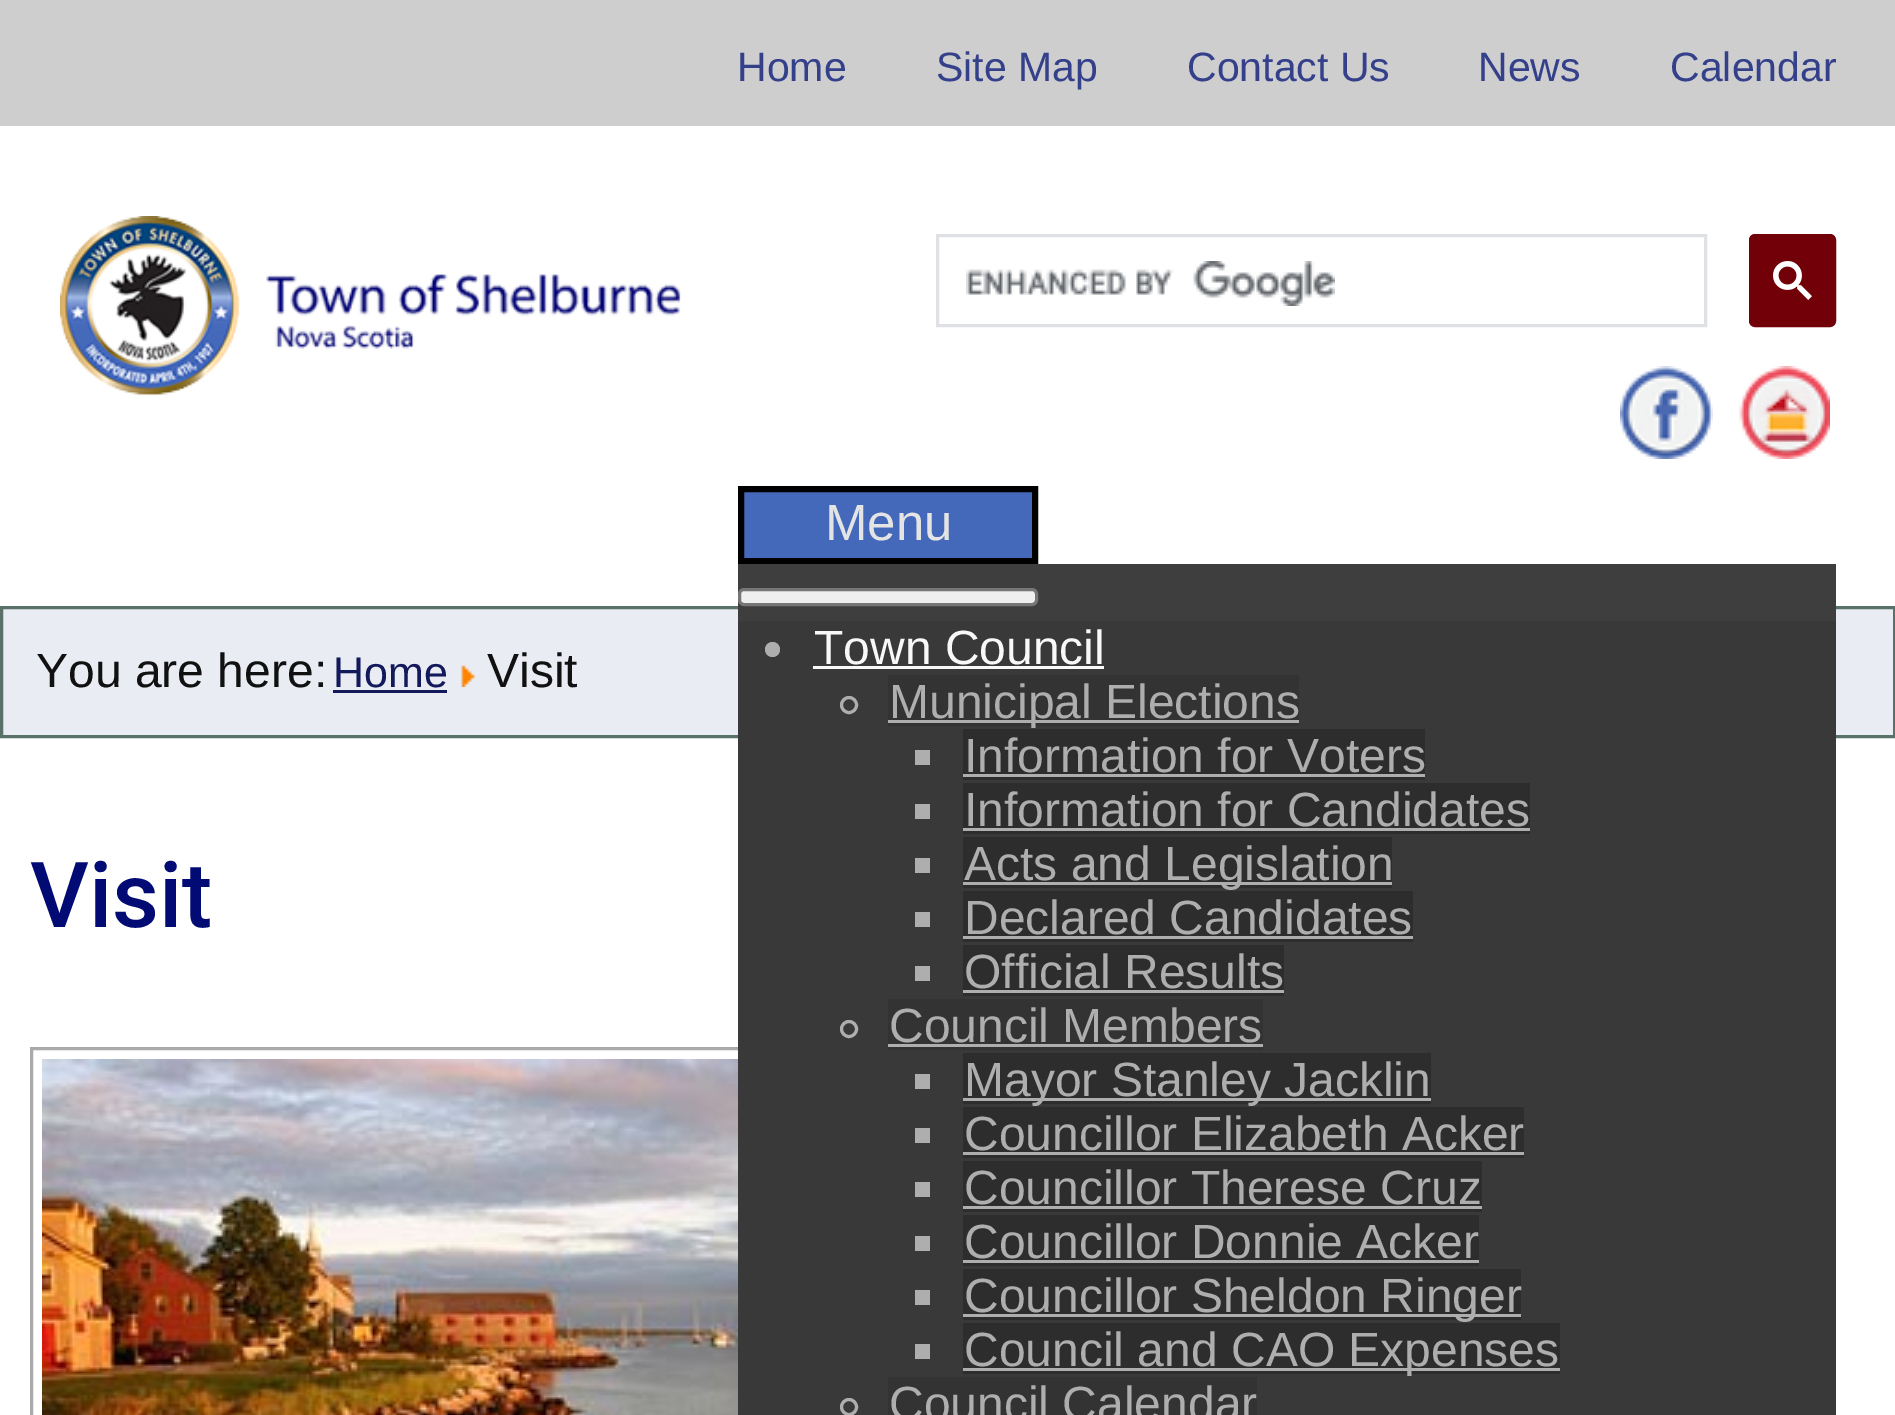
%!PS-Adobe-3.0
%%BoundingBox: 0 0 1895 1415
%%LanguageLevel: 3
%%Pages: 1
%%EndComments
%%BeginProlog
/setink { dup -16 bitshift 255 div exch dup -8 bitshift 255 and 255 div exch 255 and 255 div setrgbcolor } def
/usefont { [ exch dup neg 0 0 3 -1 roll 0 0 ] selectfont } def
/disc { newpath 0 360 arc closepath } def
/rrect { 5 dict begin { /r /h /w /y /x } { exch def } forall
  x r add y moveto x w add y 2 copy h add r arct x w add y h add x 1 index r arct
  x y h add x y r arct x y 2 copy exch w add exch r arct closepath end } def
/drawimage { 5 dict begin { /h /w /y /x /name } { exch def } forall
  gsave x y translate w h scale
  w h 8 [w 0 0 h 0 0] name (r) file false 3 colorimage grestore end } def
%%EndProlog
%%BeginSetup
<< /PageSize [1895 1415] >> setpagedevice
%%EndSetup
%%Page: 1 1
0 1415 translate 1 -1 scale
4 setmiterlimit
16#FFFFFF setink
0 0 1895 1415 rectfill
16#EAECF4 setink
1.5 607.5 moveto 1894.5 607.5 lineto 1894.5 736.5 lineto 1.5 736.5 lineto closepath gsave fill grestore
16#5A716A setink
3 setlinewidth
stroke
/LiberationSans-Regular 48 usefont
16#111111 setink
36 687 moveto (You are here:) show
/LiberationSans-Regular 43 usefont
16#131A5C setink
333 687 moveto (Home) show
333 690 114 3 rectfill
(img1.raw) 461 665 15 22 drawimage
/LiberationSans-Regular 48 usefont
16#111111 setink
487 687 moveto (Visit) show
16#CECECE setink
0 0 1895 126 rectfill
/LiberationSans-Regular 41 usefont
16#35408B setink
[
    [(Home) 737 81]
    [(Site Map) 936 81]
    [(Contact Us) 1187 81]
    [(News) 1478 81]
    [(Calendar) 1670 81]
] { aload pop moveto show } forall
16#DFE1E5 setink
937.5 235.5 768 90 rectstroke
(img2.raw) 966 261 369 45 drawimage
16#710008 setink
1750.5 235.5 84 90 4.5 rrect gsave fill grestore
stroke
(img3.raw) 1773 261 39 39 drawimage
(img4.raw) 60 216 621 180 drawimage
(img5.raw) 1620 366 93 93 drawimage
(img6.raw) 1739 366 91 93 drawimage
16#4569BA setink
741 489 moveto 1035 489 lineto 1035 561 lineto 741 561 lineto closepath gsave fill grestore
16#000000 setink
6 setlinewidth
stroke
/LiberationSans-Regular 51 usefont
16#E4E4E4 setink
825 540 moveto (Menu) show
16#AAAAAA setink
3 setlinewidth
31.5 1048.5 1071 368 rectstroke
16#393939 setink
738 621 1098 794 rectfill
16#3E3E3E setink
738 564 1098 57 rectfill
16#EFEFEF setink
739.5 589.5 297 15 4.5 rrect gsave fill grestore
16#767676 setink
stroke
16#AEAEAE setink
772.5 649.5 7.5 disc fill
/LiberationSans-Regular 48 usefont
16#F8F8F8 setink
814 664 moveto (Town Council) show
813 666 291 3 rectfill
16#AEAEAE setink
849 705 7.5 disc stroke
16#333333 setink
888 675 411 51 rectfill
16#AEAEAE setink
888 720 411 3 rectfill
889 718 moveto (Municipal Elections) show
915 750 15 15 rectfill
16#2D2D2D setink
963 729 462 51 rectfill
16#AEAEAE setink
964 772 moveto (Information for Voters) show
[
    [963 774 462 3 16#AEAEAE]
    [915 804 15 15 16#AEAEAE]
    [963 783 567 51 16#2D2D2D]
] { aload pop setink rectfill } forall
16#AEAEAE setink
964 826 moveto (Information for Candidates) show
[
    [963 828 567 3 16#AEAEAE]
    [915 858 15 15 16#AEAEAE]
    [963 837 429 51 16#2D2D2D]
    [963 882 429 3 16#AEAEAE]
] { aload pop setink rectfill } forall
964 880 moveto (Acts and Legislation) show
915 912 15 15 rectfill
16#2D2D2D setink
963 891 450 51 rectfill
16#AEAEAE setink
964 934 moveto (Declared Candidates) show
[
    [963 936 450 3 16#AEAEAE]
    [915 966 15 15 16#AEAEAE]
    [963 945 321 51 16#2D2D2D]
] { aload pop setink rectfill } forall
16#AEAEAE setink
964 988 moveto (Official Results) show
963 990 321 3 rectfill
849 1029 7.5 disc stroke
16#333333 setink
888 999 375 51 rectfill
16#AEAEAE setink
889 1042 moveto (Council Members) show
[
    [888 1044 375 3 16#AEAEAE]
    [915 1074 15 15 16#AEAEAE]
    [963 1053 468 51 16#2D2D2D]
    [963 1098 468 3 16#AEAEAE]
] { aload pop setink rectfill } forall
964 1096 moveto (Mayor Stanley Jacklin) show
915 1128 15 15 rectfill
16#2D2D2D setink
963 1107 561 51 rectfill
16#AEAEAE setink
964 1150 moveto (Councillor Elizabeth Acker) show
[
    [963 1152 561 3 16#AEAEAE]
    [915 1182 15 15 16#AEAEAE]
    [963 1161 519 51 16#2D2D2D]
] { aload pop setink rectfill } forall
16#AEAEAE setink
964 1204 moveto (Councillor Therese Cruz) show
[
    [963 1206 519 3 16#AEAEAE]
    [915 1236 15 15 16#AEAEAE]
    [963 1215 516 51 16#2D2D2D]
] { aload pop setink rectfill } forall
16#AEAEAE setink
964 1258 moveto (Councillor Donnie Acker) show
[
    [963 1260 516 3 16#AEAEAE]
    [915 1290 15 15 16#AEAEAE]
    [963 1269 558 51 16#2D2D2D]
    [963 1314 558 3 16#AEAEAE]
] { aload pop setink rectfill } forall
964 1312 moveto (Councillor Sheldon Ringer) show
[
    [915 1344 15 15 16#AEAEAE]
    [963 1323 597 51 16#2D2D2D]
    [963 1368 597 3 16#AEAEAE]
] { aload pop setink rectfill } forall
964 1366 moveto (Council and CAO Expenses) show
849 1407 7.5 disc stroke
16#333333 setink
888 1377 369 38 rectfill
16#AEAEAE setink
889 1420 moveto (Council Calendar) show
/Roboto-Medium 91 usefont
16#020A73 setink
30 927 moveto (Visit) show
(img7.raw) 42 1059 696 356 drawimage
showpage
%%EOF
